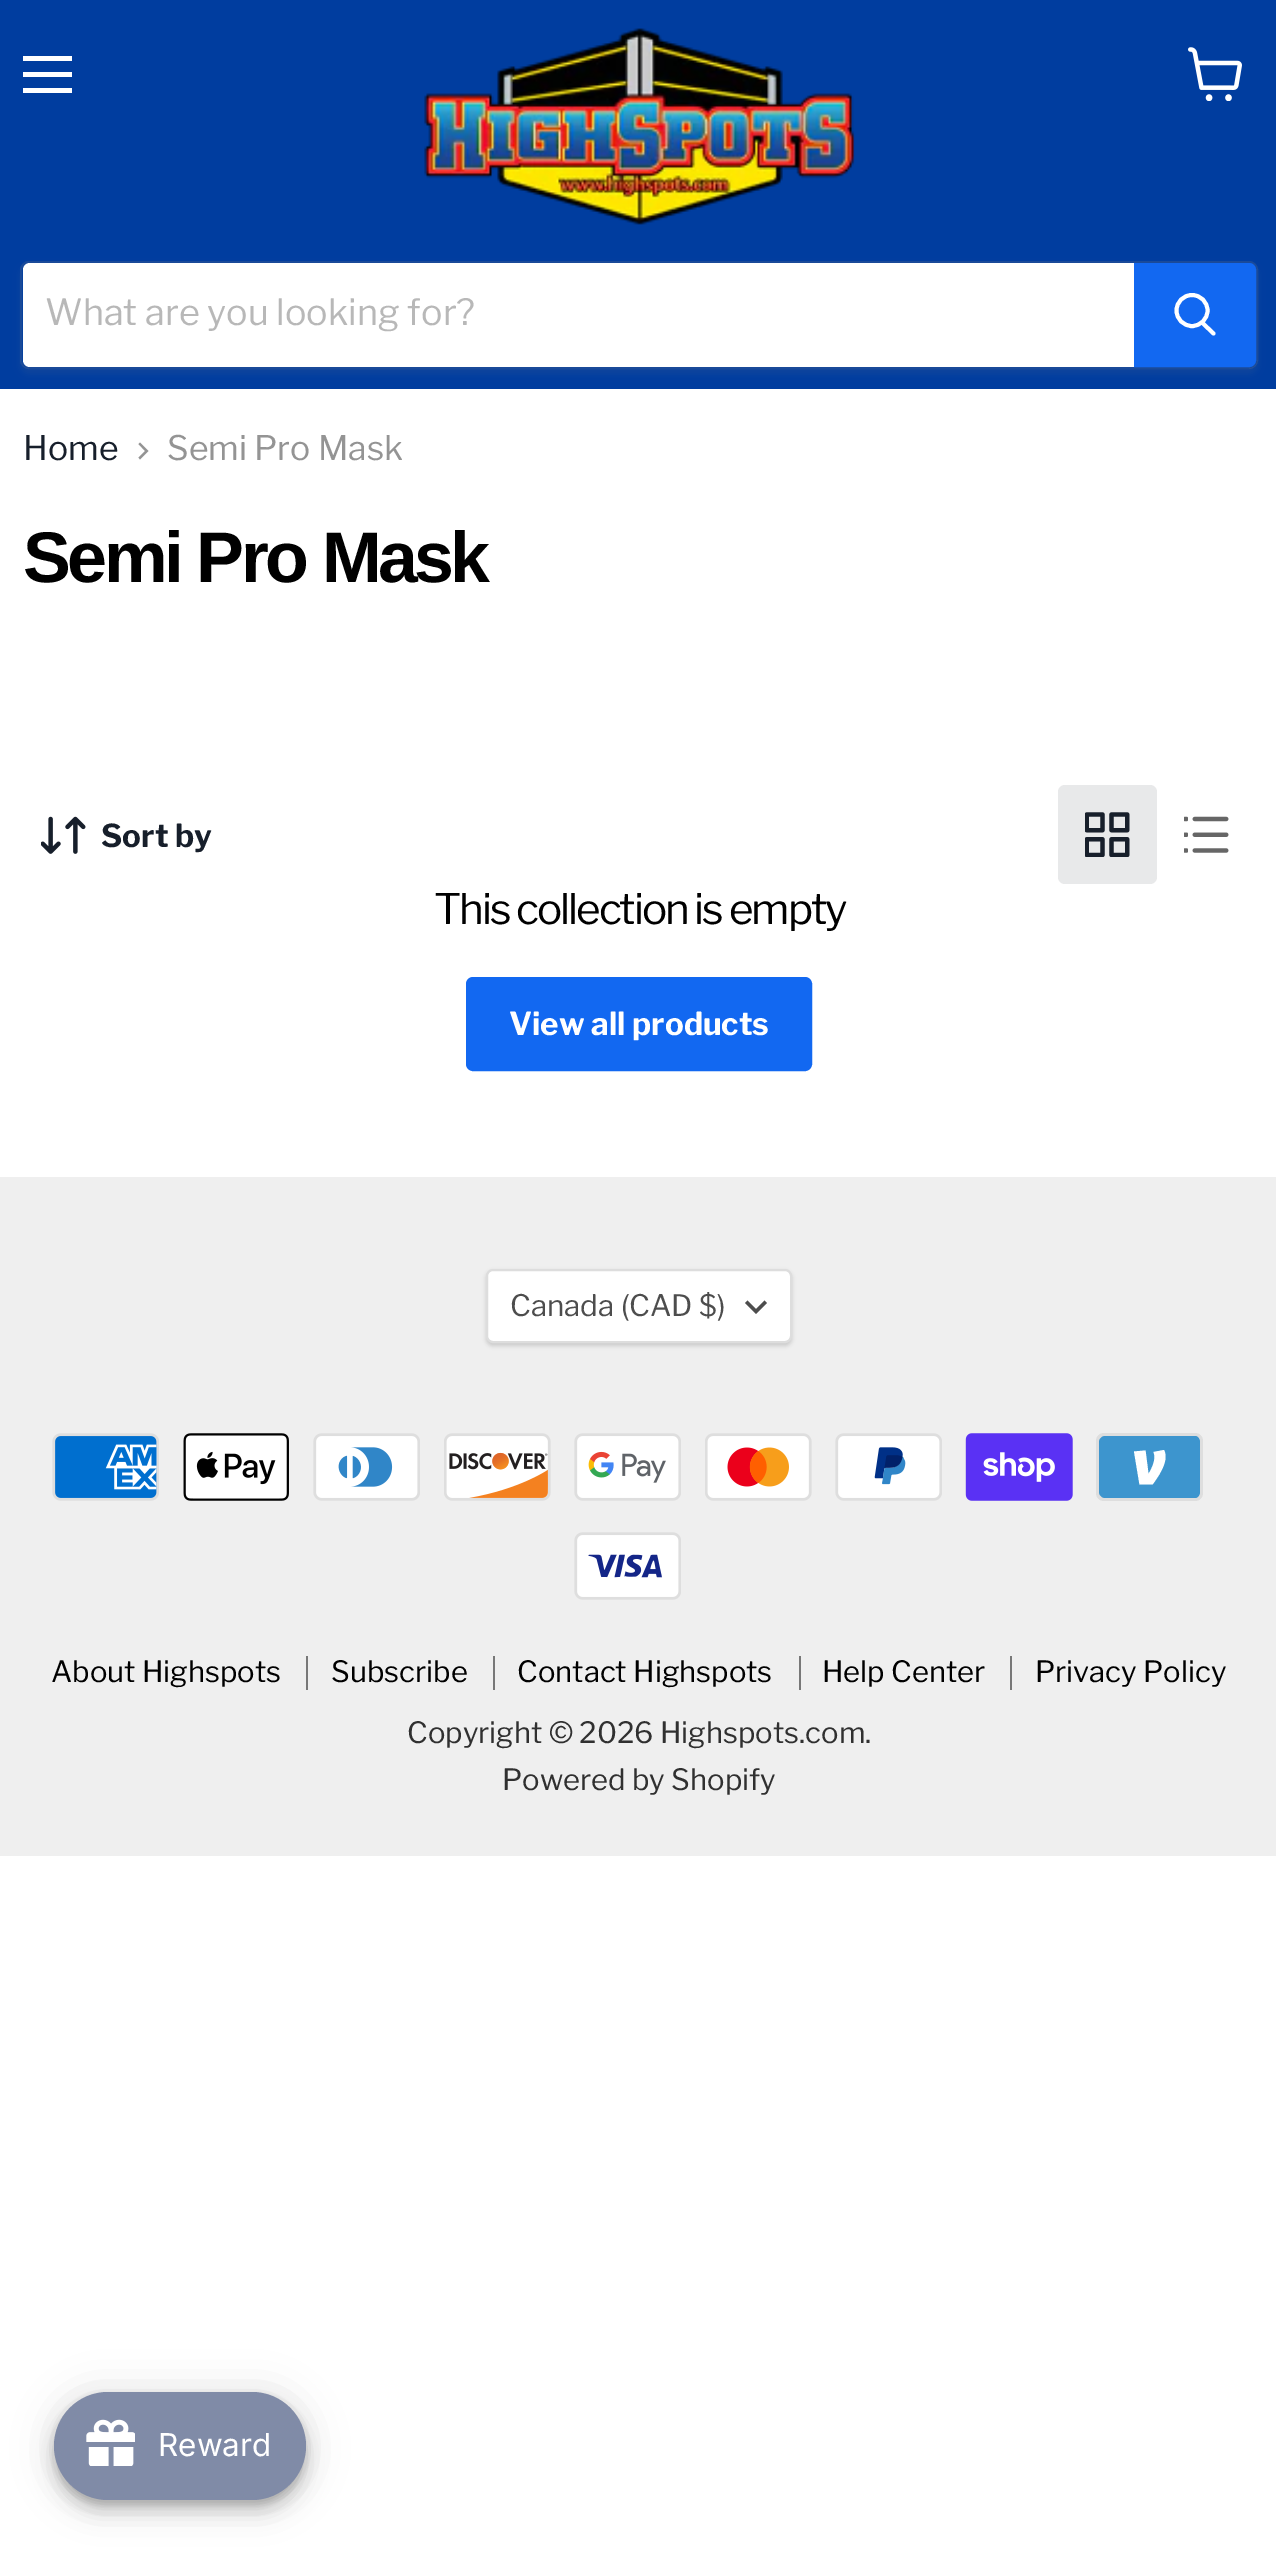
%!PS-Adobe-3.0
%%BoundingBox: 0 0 1276 2552
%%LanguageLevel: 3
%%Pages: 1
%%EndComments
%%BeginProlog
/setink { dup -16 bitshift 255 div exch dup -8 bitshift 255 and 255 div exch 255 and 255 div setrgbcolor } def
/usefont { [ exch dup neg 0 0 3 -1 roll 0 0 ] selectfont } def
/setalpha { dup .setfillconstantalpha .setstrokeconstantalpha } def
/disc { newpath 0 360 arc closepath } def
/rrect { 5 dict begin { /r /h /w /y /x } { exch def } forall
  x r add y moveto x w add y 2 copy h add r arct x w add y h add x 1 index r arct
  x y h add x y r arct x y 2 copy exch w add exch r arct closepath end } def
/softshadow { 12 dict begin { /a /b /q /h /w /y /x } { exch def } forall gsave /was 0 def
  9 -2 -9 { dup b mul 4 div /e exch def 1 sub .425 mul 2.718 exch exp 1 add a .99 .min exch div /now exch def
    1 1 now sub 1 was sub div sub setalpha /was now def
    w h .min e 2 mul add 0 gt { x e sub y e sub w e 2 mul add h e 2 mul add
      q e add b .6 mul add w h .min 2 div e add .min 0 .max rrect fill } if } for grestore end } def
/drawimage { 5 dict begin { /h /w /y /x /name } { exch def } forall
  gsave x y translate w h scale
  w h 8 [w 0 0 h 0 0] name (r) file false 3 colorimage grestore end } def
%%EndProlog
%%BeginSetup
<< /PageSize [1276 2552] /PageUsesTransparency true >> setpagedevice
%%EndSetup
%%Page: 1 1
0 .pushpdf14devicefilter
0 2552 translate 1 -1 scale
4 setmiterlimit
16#FFFFFF setink
0 0 1276 2552 rectfill
[
    [0 0 1276 389 16#003D9F]
    [23 56 49 5 16#FFFFFF]
    [23 72 49 5 16#FFFFFF]
    [23 88 49 5 16#FFFFFF]
] { aload pop setink rectfill } forall
(img1.raw) 1188 47 54 54 drawimage
(img2.raw) 424 28 431 197 drawimage
gsave
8 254 moveto 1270 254 lineto 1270 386 lineto 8 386 lineto closepath 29 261 moveto 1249 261 lineto 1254 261 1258 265 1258 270 curveto 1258 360 lineto 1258 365 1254 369 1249 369 curveto 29 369 lineto 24 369 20 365 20 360 curveto 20 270 lineto 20 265 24 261 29 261 curveto closepath eoclip newpath
16#808080 setink
20 266 1238 108 9 3.5 0.11 softshadow
grestore
0.2 setalpha
16#808080 setink
2 setlinewidth
21 262 1236 106 8 rrect stroke
1 setalpha
16#FFFFFF setink
30 263 moveto 1134 263 lineto 1134 367 lineto 30 367 lineto 26 367 23 364 23 360 curveto 23 270 lineto 23 266 26 263 30 263 curveto closepath fill
/LibreFranklin-Regular 36 usefont
16#B8B8B8 setink
45 325 moveto (What are you looking for?) show
16#1268F1 setink
1135 264 moveto 1249 264 lineto 1252.5 264 1255 266.5 1255 270 curveto 1255 360 lineto 1255 363.5 1252.5 366 1249 366 curveto 1135 366 lineto closepath gsave fill grestore
stroke
16#FFFFFF setink
3.9 setlinewidth
1 setlinecap
1213.5 333.5 moveto 1202.5 323 lineto stroke
0 setlinecap
1192 310.5 15.5 disc stroke
/LibreFranklin-Regular 33.75 usefont
16#171F2B setink
23 460 moveto (Home) show
16#949494 setink
138.5 457.5 moveto 140 459.5 lineto 148.5 451 lineto 140 442.5 lineto 138.5 444 lineto 145 451 lineto closepath eofill
167 460 moveto (Semi Pro Mask) show
/Arimo-Bold 71.75 usefont
16#000000 setink
23 582 moveto -3.6 0 (Semi Pro Mask) ashow
/LibreFranklin-Regular 42.25 usefont
434 924 moveto -2.1 0 (This collection is empty) ashow
16#FFFFFF setink
435 892 266 1 rectfill
(img3.raw) 41 816 45 38 drawimage
/LibreFranklin-Bold 31.5 usefont
16#171F2B setink
101 847 moveto (Sort by) show
16#E8E9EA setink
1058 785 99 99 7 rrect fill
(img4.raw) 1085 812 45 45 drawimage
(img5.raw) 1184 816 45 37 drawimage
16#1268F1 setink
467 978 344 92 6 rrect gsave fill grestore
2 setlinewidth
stroke
16#FFFFFF setink
509 1035 moveto (View all products) show
16#EFEFEF setink
0 1177 1276 679 rectfill
16#000000 setink
486 1271 306 75 7 2 0.15 softshadow
16#FFFFFF setink
487 1270 304 72 6 rrect gsave fill grestore
16#DDDDDD setink
stroke
/LibreFranklin-Regular 29.5 usefont
16#4D4D4D setink
510 1316 moveto (Canada \(CAD $\)) show
3.5 setlinewidth
2 setlinecap
756 1311.5 moveto 764.5 1303 lineto 756 1311.5 moveto 747.5 1303 lineto stroke
(img6.raw) 52 1433 107 68 drawimage
(img7.raw) 183 1433 106 68 drawimage
(img8.raw) 313 1433 107 68 drawimage
(img9.raw) 444 1433 107 68 drawimage
(img10.raw) 574 1433 107 68 drawimage
(img11.raw) 705 1433 107 68 drawimage
(img12.raw) 835 1433 107 68 drawimage
(img13.raw) 965 1433 108 68 drawimage
16#DEDEDE setink
1096 1433 107 68 8 rrect fill
16#3D95CE setink
1195 1436 moveto 1198 1436 1200 1439 1200 1442 curveto 1200 1492 lineto 1200 1495 1198 1498 1195 1498 curveto 1105 1498 lineto 1102 1498 1099 1495 1099 1492 curveto 1099 1442 lineto 1099 1439 1102 1436 1105 1436 curveto 1195 1436 lineto eofill
16#FFFFFF setink
1165.5 1457 moveto 1165.5 1465.5 1158.5 1476.5 1152.5 1484.5 curveto 1139.5 1484.5 lineto 1134 1451.5 lineto 1145.5 1450.5 lineto 1148.5 1474 lineto 1152 1468 1156.5 1459 1153.5 1452 curveto 1164 1450 lineto 1165 1452 1165.5 1454 1165.5 1457 curveto closepath fill
(img14.raw) 574 1532 107 68 drawimage
16#787878 setink
306 1656 2 34 rectfill
/LibreFranklin-Regular 29.25 usefont
16#000000 setink
51 1682 moveto (About Highspots) show
16#787878 setink
493 1656 2 34 rectfill
16#000000 setink
331 1682 moveto (Subscribe) show
16#787878 setink
799 1656 2 34 rectfill
16#000000 setink
517 1682 moveto (Contact Highspots) show
16#787878 setink
1010 1656 2 34 rectfill
16#000000 setink
822 1682 moveto (Help Center) show
1035 1682 moveto (Privacy Policy) show
16#303030 setink
407 1743 moveto (Copyright © 2026 Highspots.com.) show
502 1790 moveto (Powered by Shopify) show
16#000000 setink
54 2394 252 108 54 20 0.12 softshadow
54 2405 252 108 54 11 0.14 softshadow
56 2401 248 103 51.5 5.5 0.2 softshadow
16#808BA7 setink
54 2392 252 108 54 rrect fill
(img15.raw) 86 2419 49 47 drawimage
/Inter-Regular 31.5 usefont
16#FFFFFF setink
158 2456 moveto (Reward) show
.poppdf14devicefilter showpage
%%EOF
